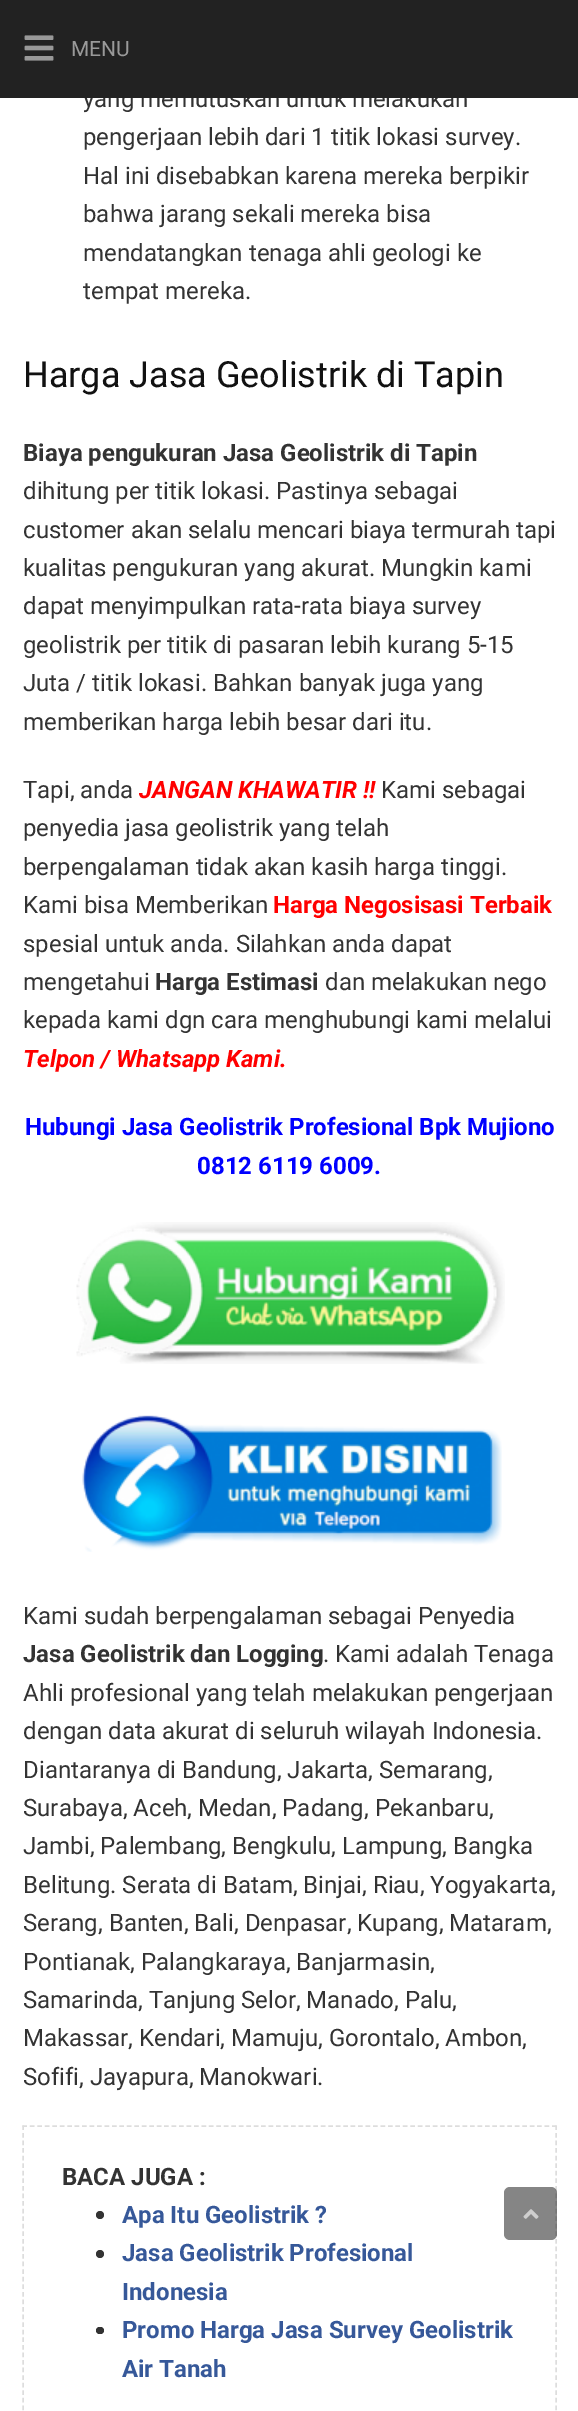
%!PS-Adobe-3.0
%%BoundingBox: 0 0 578 2411
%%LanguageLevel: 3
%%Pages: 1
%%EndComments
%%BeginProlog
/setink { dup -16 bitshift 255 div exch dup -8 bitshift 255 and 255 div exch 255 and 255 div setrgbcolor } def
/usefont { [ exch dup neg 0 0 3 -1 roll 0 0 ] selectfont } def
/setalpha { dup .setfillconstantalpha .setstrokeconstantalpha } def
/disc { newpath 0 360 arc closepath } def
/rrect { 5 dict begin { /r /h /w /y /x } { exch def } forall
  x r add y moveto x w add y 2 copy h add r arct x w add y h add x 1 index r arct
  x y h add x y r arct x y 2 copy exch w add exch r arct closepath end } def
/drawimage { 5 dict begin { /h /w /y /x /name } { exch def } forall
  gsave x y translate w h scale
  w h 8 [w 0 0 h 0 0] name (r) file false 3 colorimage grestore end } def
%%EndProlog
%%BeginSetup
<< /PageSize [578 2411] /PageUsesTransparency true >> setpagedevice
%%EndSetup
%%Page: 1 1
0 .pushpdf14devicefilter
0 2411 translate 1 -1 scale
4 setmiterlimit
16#FFFFFF setink
0 0 578 2411 rectfill
/Roboto-Regular 24 usefont
16#333333 setink
83 107 moveto (yang memutuskan untuk melakukan) show
16#222222 setink
0 0 578 98 rectfill
(img1.raw) 24 35 30 26 drawimage
/Roboto-Regular 21 usefont
16#999999 setink
71 56 moveto (MENU) show
/Roboto-Regular 24 usefont
16#333333 setink
[
    [(pengerjaan lebih dari 1 titik lokasi survey.) 83 145]
    [(Hal ini disebabkan karena mereka berpikir) 83 184]
    [(bahwa jarang sekali mereka bisa) 83 222]
    [(mendatangkan tenaga ahli geologi ke) 83 261]
    [(tempat mereka.) 83 299]
] { aload pop moveto show } forall
/Roboto-Regular 36 usefont
16#111111 setink
23 387 moveto (Harga Jasa Geolistrik di Tapin) show
/Roboto-Bold 24 usefont
16#333333 setink
23 461 moveto (Biaya pengukuran Jasa Geolistrik di Tapin) show
/Roboto-Regular 24 usefont
[
    [(dihitung per titik lokasi. Pastinya sebagai) 23 499]
    [(customer akan selalu mencari biaya termurah tapi) 23 538]
    [(kualitas pengukuran yang akurat. Mungkin kami) 23 576]
    [(dapat menyimpulkan rata-rata biaya survey) 23 614]
    [(geolistrik per titik di pasaran lebih kurang 5-15) 23 653]
    [(Juta / titik lokasi. Bahkan banyak juga yang) 23 691]
    [(memberikan harga lebih besar dari itu.) 23 730]
    [(Tapi, anda) 23 798]
] { aload pop moveto show } forall
/Roboto-BoldItalic 24 usefont
16#FF0000 setink
139 798 moveto (JANGAN KHAWATIR !!) show
/Roboto-Regular 24 usefont
16#333333 setink
[
    [(Kami sebagai) 381 798]
    [(penyedia jasa geolistrik yang telah) 23 836]
    [(berpengalaman tidak akan kasih harga tinggi.) 23 875]
    [(Kami bisa Memberikan) 23 913]
] { aload pop moveto show } forall
/Roboto-Bold 24 usefont
16#FF0000 setink
273 913 moveto (Harga Negosisasi Terbaik) show
/Roboto-Regular 24 usefont
16#333333 setink
23 952 moveto (spesial untuk anda. Silahkan anda dapat) show
23 990 moveto (mengetahui) show
/Roboto-Bold 24 usefont
155 990 moveto (Harga Estimasi) show
/Roboto-Regular 24 usefont
325 990 moveto (dan melakukan nego) show
23 1028 moveto (kepada kami dgn cara menghubungi kami melalui) show
/Roboto-BoldItalic 24 usefont
16#FF0000 setink
23 1067 moveto (Telpon / Whatsapp Kami.) show
/Roboto-Bold 24 usefont
16#0000FF setink
25 1135 moveto (Hubungi Jasa Geolistrik Profesional Bpk Mujiono) show
197 1174 moveto (0812 6119 6009.) show
(img2.raw) 76 1222 429 142 drawimage
(img3.raw) 82 1415 420 137 drawimage
/Roboto-Regular 24 usefont
16#333333 setink
23 1624 moveto (Kami sudah berpengalaman sebagai Penyedia) show
/Roboto-Bold 24 usefont
23 1662 moveto (Jasa Geolistrik dan Logging) show
/Roboto-Regular 24 usefont
[
    [(. Kami adalah Tenaga) 323 1662]
    [(Ahli profesional yang telah melakukan pengerjaan) 23 1701]
    [(dengan data akurat di seluruh wilayah Indonesia.) 23 1739]
    [(Diantaranya di Bandung, Jakarta, Semarang,) 23 1778]
    [(Surabaya, Aceh, Medan, Padang, Pekanbaru,) 23 1816]
    [(Jambi, Palembang, Bengkulu, Lampung, Bangka) 23 1854]
    [(Belitung. Serata di Batam, Binjai, Riau, Yogyakarta,) 23 1893]
    [(Serang, Banten, Bali, Denpasar, Kupang, Mataram,) 23 1931]
    [(Pontianak, Palangkaraya, Banjarmasin,) 23 1970]
    [(Samarinda, Tanjung Selor, Manado, Palu,) 23 2008]
    [(Makassar, Kendari, Mamuju, Gorontalo, Ambon,) 23 2046]
    [(Sofifi, Jayapura, Manokwari.) 23 2085]
] { aload pop moveto show } forall
16#DDDDDD setink
1.5 setlinewidth
[4.5 2.96] 0 setdash
22.5 2126 moveto 556.5 2126 lineto stroke
[4.5 3.07] 0 setdash
556 2125.5 moveto 556 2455.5 lineto stroke
23 2125.5 moveto 23 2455.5 lineto stroke
/Roboto-Bold 24 usefont
16#333333 setink
62 2185 moveto (BACA JUGA :) show
100 2215 4 disc fill
16#365899 setink
122 2223 moveto (Apa Itu Geolistrik ?) show
16#333333 setink
100 2254 4 disc fill
16#365899 setink
122 2261 moveto (Jasa Geolistrik Profesional) show
122 2300 moveto (Indonesia) show
16#333333 setink
96 2327 8 7 3.5 rrect fill
16#365899 setink
122 2338 moveto (Promo Harga Jasa Survey Geolistrik) show
122 2377 moveto (Air Tanah) show
0.6 setalpha
16#333333 setink
504 2187 53 53 6 rrect fill
1 setalpha
(img4.raw) 523 2209 16 10 drawimage
.poppdf14devicefilter showpage
%%EOF
